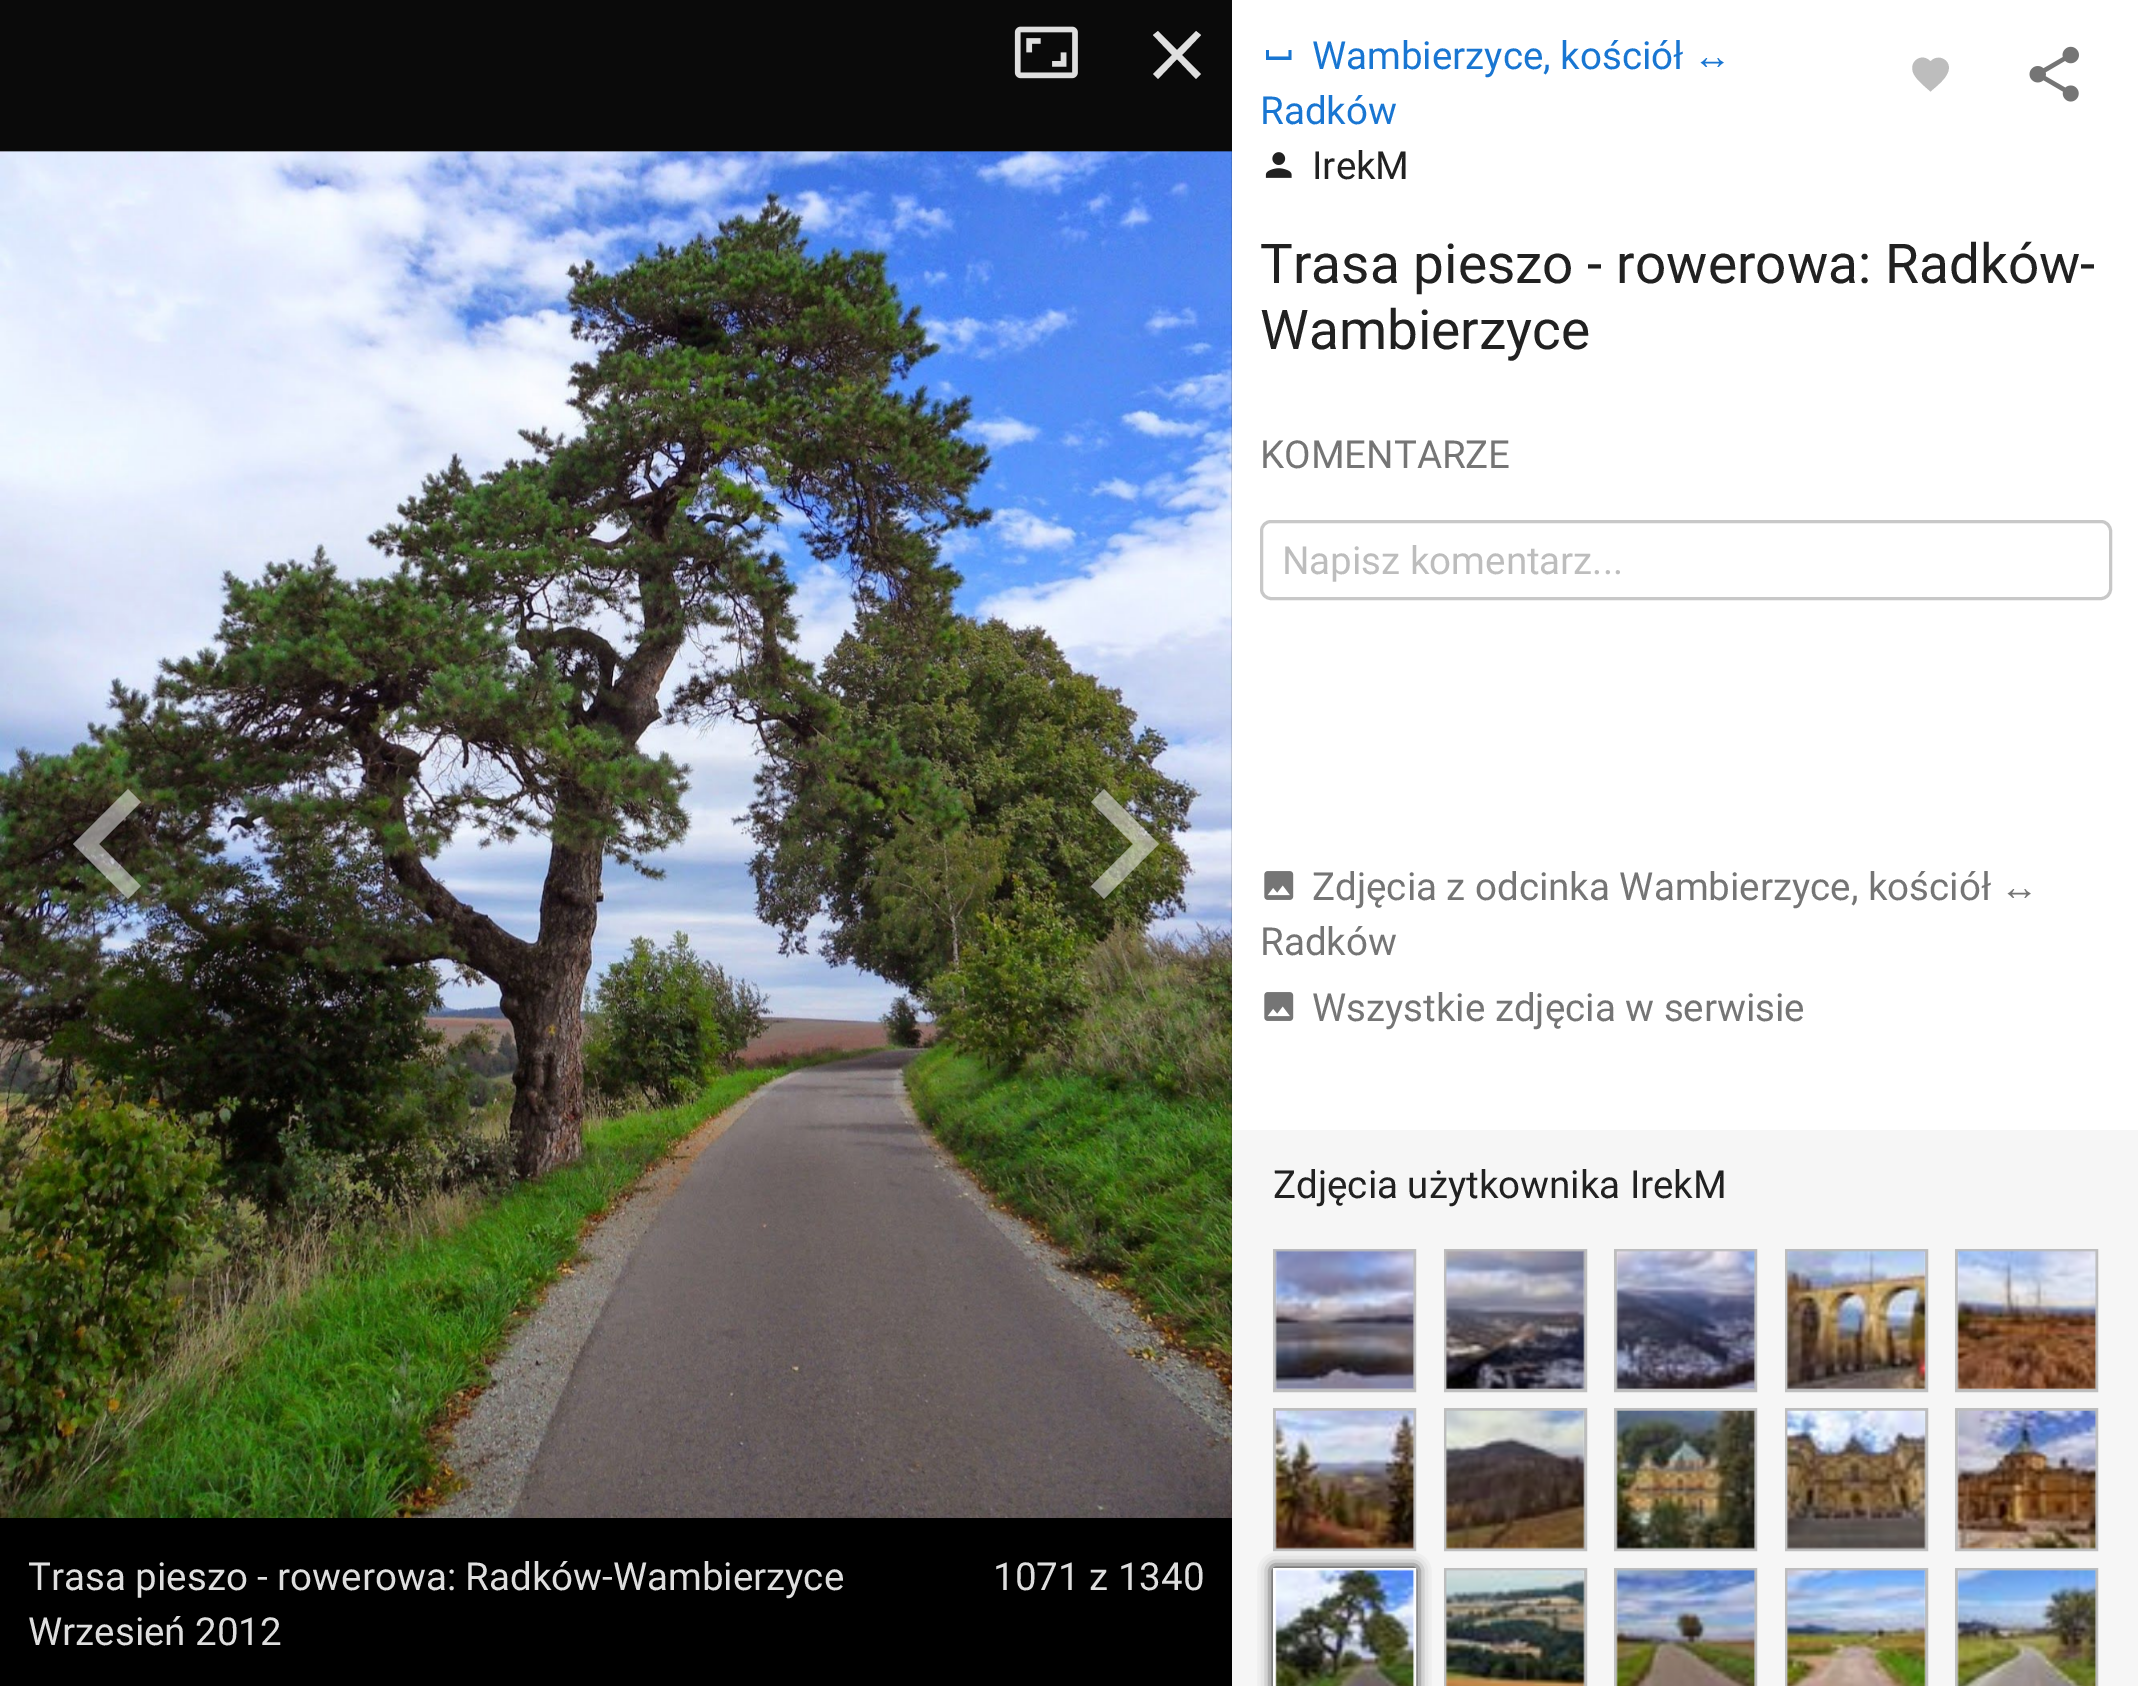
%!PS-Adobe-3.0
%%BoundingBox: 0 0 2138 1686
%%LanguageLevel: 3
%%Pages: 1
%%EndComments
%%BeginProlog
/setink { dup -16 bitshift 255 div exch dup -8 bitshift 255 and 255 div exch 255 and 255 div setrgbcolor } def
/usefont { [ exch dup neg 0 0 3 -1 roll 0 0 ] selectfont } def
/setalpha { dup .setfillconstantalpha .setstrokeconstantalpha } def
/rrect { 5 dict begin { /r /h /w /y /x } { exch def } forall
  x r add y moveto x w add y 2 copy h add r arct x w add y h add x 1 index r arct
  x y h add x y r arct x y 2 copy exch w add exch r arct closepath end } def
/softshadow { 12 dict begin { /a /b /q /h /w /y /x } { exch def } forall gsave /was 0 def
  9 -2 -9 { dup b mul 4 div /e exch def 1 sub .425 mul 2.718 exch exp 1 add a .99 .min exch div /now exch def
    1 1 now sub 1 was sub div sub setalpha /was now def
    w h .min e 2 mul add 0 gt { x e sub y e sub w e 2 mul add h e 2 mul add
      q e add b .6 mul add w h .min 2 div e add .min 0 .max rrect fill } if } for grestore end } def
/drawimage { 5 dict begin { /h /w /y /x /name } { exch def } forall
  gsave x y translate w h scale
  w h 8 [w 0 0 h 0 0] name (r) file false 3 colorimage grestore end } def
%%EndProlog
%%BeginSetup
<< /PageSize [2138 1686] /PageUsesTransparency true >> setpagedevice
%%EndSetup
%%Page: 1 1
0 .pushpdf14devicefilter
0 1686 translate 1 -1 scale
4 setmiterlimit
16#0A0A0A setink
0 0 2138 1686 rectfill
16#FFFFFF setink
1232 0 906 1130 rectfill
16#1976D2 setink
1288.5 50 moveto 1291.5 50 lineto 1291.5 60 lineto 1266 60 lineto 1266 50 lineto 1269 50 lineto 1269 56.5 lineto 1288.5 56.5 lineto closepath fill
/Roboto-Regular 38.5 usefont
1312 69 moveto (Wambierzyce, kościół) show
/LiberationSans-Regular 38.5 usefont
1693 69 moveto (↔) show
/Roboto-Regular 38.5 usefont
1260 124 moveto (Radków) show
(img1.raw) 1265 152 27 26 drawimage
16#212121 setink
1312 179 moveto (IrekM) show
16#BDBDBD setink
1930.5 91.5 moveto 1925 86.5 1916.5 80 1913.5 73.5 curveto 1908 61.5 1922 52 1930.5 61.5 curveto 1938.5 52.5 1952.5 61 1948 72 curveto 1945 80 1936.5 86 1930.5 91.5 curveto closepath fill
(img2.raw) 2029 46 50 56 drawimage
/Roboto-Regular 55 usefont
16#212121 setink
1260 283 moveto (Trasa pieszo - rowerowa: Radków-) show
1260 349 moveto (Wambierzyce) show
/Roboto-Regular 38.5 usefont
16#757575 setink
1260 468 moveto (KOMENTARZE) show
16#C8C8C8 setink
3 setlinewidth
1261.5 521.5 849 77 9.5 rrect stroke
16#BDBDBD setink
1282 574 moveto (Napisz komentarz...) show
(img3.raw) 1264 871 30 29 drawimage
16#757575 setink
1312 900 moveto (Zdjęcia z odcinka Wambierzyce, kościół) show
/LiberationSans-Regular 38.5 usefont
2000 900 moveto (↔) show
/Roboto-Regular 38.5 usefont
1260 955 moveto (Radków) show
(img3.raw) 1264 992 30 29 drawimage
1312 1021 moveto (Wszystkie zdjęcia w serwisie) show
16#F6F6F6 setink
1232 1130 906 556 rectfill
16#212121 setink
1273 1198 moveto (Zdjęcia użytkownika IrekM) show
16#BDBDBD setink
1274.5 1250.5 140 140 rectstroke
(img4.raw) 1275 1250 140 139 drawimage
1445.5 1250.5 140 140 rectstroke
(img5.raw) 1446 1250 139 139 drawimage
1615.5 1250.5 140 140 rectstroke
(img6.raw) 1616 1250 140 139 drawimage
1786.5 1250.5 140 140 rectstroke
(img7.raw) 1787 1250 139 139 drawimage
1956.5 1250.5 140 140 rectstroke
(img8.raw) 1957 1250 140 139 drawimage
1274.5 1409.5 140 140 rectstroke
(img9.raw) 1275 1410 140 139 drawimage
1445.5 1409.5 140 140 rectstroke
(img10.raw) 1446 1410 139 139 drawimage
1615.5 1409.5 140 140 rectstroke
(img11.raw) 1616 1410 140 139 drawimage
1786.5 1409.5 140 140 rectstroke
(img12.raw) 1787 1410 139 139 drawimage
1956.5 1409.5 140 140 rectstroke
(img13.raw) 1957 1410 140 139 drawimage
16#000000 setink
1273 1568 143 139 0 7 1 softshadow
16#FFFFFF setink
1274.5 1569.5 140 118 rectstroke
(img14.raw) 1275 1569 140 117 drawimage
16#BDBDBD setink
1445.5 1569.5 140 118 rectstroke
(img15.raw) 1446 1569 139 117 drawimage
1615.5 1569.5 140 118 rectstroke
(img16.raw) 1616 1569 140 117 drawimage
1786.5 1569.5 140 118 rectstroke
(img17.raw) 1787 1569 139 117 drawimage
1956.5 1569.5 140 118 rectstroke
(img18.raw) 1957 1569 140 117 drawimage
(img19.raw) 1014 26 64 53 drawimage
16#DFDFDF setink
1201 35 moveto 1196 31 lineto 1177 50 lineto 1158 31 lineto 1153 35 lineto 1172 55 lineto 1153 74 lineto 1158 79 lineto 1177 59 lineto 1196 79 lineto 1201 74 lineto 1182 55 lineto closepath fill
(img20.raw) 0 151 1232 1367 drawimage
0.5 setalpha
16#FFFFFF setink
141 802 moveto 128 789 lineto 73 844 lineto 128 899 lineto 141 886 lineto 99 844 lineto closepath fill
1104 789 moveto 1091 802 lineto 1133 844 lineto 1091 886 lineto 1104 899 lineto 1159 844 lineto closepath fill
1 setalpha
16#000000 setink
0 1518 1232 168 rectfill
16#DEDEDE setink
[
    [(Trasa pieszo - rowerowa: Radków-Wambierzyce) 28 1590]
    [(Wrzesień 2012) 28 1645]
    [(1071 z 1340) 993 1590]
] { aload pop moveto show } forall
.poppdf14devicefilter showpage
%%EOF
